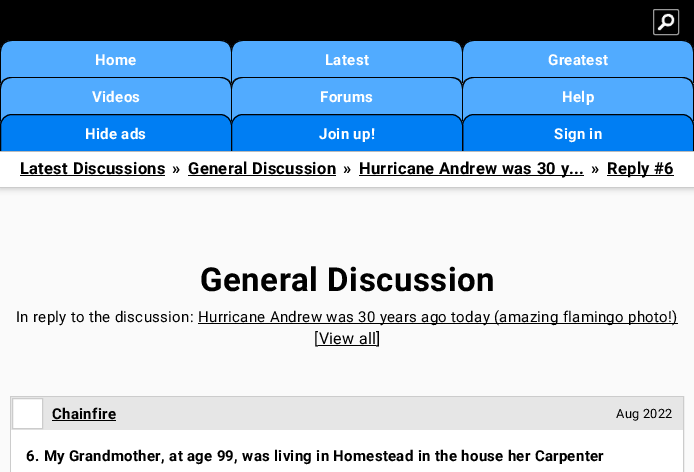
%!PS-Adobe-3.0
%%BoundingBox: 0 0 694 472
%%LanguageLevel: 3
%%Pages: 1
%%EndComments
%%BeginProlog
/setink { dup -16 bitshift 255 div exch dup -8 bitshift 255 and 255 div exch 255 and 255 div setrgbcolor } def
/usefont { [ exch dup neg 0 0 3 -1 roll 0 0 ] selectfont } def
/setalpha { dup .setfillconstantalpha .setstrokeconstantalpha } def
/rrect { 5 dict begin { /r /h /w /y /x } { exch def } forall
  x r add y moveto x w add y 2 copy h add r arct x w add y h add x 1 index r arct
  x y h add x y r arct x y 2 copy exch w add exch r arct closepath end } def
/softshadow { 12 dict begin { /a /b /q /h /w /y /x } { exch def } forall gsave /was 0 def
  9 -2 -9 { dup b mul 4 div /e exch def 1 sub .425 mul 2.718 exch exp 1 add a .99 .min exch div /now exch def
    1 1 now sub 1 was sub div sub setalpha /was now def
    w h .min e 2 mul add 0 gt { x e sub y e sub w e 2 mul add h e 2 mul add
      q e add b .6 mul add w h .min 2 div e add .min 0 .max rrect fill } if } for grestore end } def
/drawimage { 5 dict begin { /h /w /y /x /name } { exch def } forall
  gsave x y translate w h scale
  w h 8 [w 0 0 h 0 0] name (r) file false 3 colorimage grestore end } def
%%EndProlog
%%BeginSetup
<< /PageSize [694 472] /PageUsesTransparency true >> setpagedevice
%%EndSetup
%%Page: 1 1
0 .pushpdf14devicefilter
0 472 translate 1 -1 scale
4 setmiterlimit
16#FAFAFA setink
0 0 694 472 rectfill
16#000000 setink
0 0 694 126 rectfill
(img1.raw) 657 13 18 18 drawimage
16#999999 setink
653.5 9.5 25 25 1.5 rrect stroke
16#51ABFF setink
12 40 moveto 220 40 lineto 226.5 40 232 45.5 232 52 curveto 232 84 lineto 0 84 lineto 0 52 lineto 0 45.5 5.5 40 12 40 curveto closepath fill
16#000000 setink
12 40 moveto 8 40 6 41 3 43 curveto 4 44 lineto 6 42 9 41 12 41 curveto 220 41 lineto 223 41 226 42 228 44 curveto 229 43 lineto 226 41 224 40 220 40 curveto closepath fill
232 84 moveto 232 52 lineto 232 48 231 46 229 43 curveto 228 44 lineto 230 46 231 49 231 52 curveto 231 83 lineto closepath fill
0 84 moveto 1 83 lineto 1 52 lineto 1 49 2 46 4 44 curveto 3 43 lineto 1 46 0 48 0 52 curveto closepath fill
/Roboto-Bold 15 usefont
16#FFFFFF setink
95 65 moveto 0.3 0 (Home) ashow
16#51ABFF setink
474 40 moveto 682 40 lineto 688.5 40 694 45.5 694 52 curveto 694 84 lineto 462 84 lineto 462 52 lineto 462 45.5 467.5 40 474 40 curveto closepath fill
16#000000 setink
474 40 moveto 470 40 468 41 465 43 curveto 466 44 lineto 468 42 471 41 474 41 curveto 682 41 lineto 685 41 688 42 690 44 curveto 691 43 lineto 688 41 686 40 682 40 curveto closepath fill
694 84 moveto 694 52 lineto 694 48 693 46 691 43 curveto 690 44 lineto 692 46 693 49 693 52 curveto 693 83 lineto closepath fill
16#BBBBBB setink
694 84 moveto 693 83 lineto 463 83 lineto 462 84 lineto closepath fill
16#000000 setink
462 84 moveto 463 83 lineto 463 52 lineto 463 49 464 46 466 44 curveto 465 43 lineto 463 46 462 48 462 52 curveto closepath fill
16#51ABFF setink
12 77 moveto 220 77 lineto 226.5 77 232 82.5 232 89 curveto 232 122 lineto 0 122 lineto 0 89 lineto 0 82.5 5.5 77 12 77 curveto closepath fill
16#000000 setink
12 77 moveto 8 77 6 78 3 80 curveto 4 81 lineto 6 79 9 78 12 78 curveto 220 78 lineto 223 78 226 79 228 81 curveto 229 80 lineto 226 78 224 77 220 77 curveto closepath fill
232 122 moveto 232 89 lineto 232 86 231 82 229 80 curveto 228 81 lineto 230 83 231 86 231 89 curveto 231 121 lineto closepath fill
16#51ABFF setink
474 77 moveto 682 77 lineto 688.5 77 694 82.5 694 89 curveto 694 122 lineto 462 122 lineto 462 89 lineto 462 82.5 467.5 77 474 77 curveto closepath fill
16#000000 setink
474 77 moveto 470 77 468 78 465 80 curveto 466 81 lineto 468 79 471 78 474 78 curveto 682 78 lineto 685 78 688 79 690 81 curveto 691 80 lineto 688 78 686 77 682 77 curveto closepath fill
694 122 moveto 694 89 lineto 694 86 693 82 691 80 curveto 690 81 lineto 692 83 693 86 693 89 curveto 693 121 lineto closepath fill
16#BBBBBB setink
694 122 moveto 693 121 lineto 463 121 lineto 462 122 lineto closepath fill
16#000000 setink
462 122 moveto 463 121 lineto 463 89 lineto 463 86 464 83 466 81 curveto 465 80 lineto 463 82 462 86 462 89 curveto closepath fill
16#51ABFF setink
243 40 moveto 451 40 lineto 457.5 40 463 45.5 463 52 curveto 463 84 lineto 231 84 lineto 231 52 lineto 231 45.5 236.5 40 243 40 curveto closepath fill
16#000000 setink
243 40 moveto 240 40 236 41 234 43 curveto 235 44 lineto 237 42 240 41 243 41 curveto 451 41 lineto 454 41 457 42 459 44 curveto 460 43 lineto 458 41 454 40 451 40 curveto closepath fill
463 84 moveto 463 52 lineto 463 48 462 46 460 43 curveto 459 44 lineto 461 46 462 49 462 52 curveto 462 83 lineto closepath fill
16#BBBBBB setink
463 84 moveto 462 83 lineto 232 83 lineto 231 84 lineto closepath fill
16#000000 setink
231 84 moveto 232 83 lineto 232 52 lineto 232 49 233 46 235 44 curveto 234 43 lineto 232 46 231 48 231 52 curveto closepath fill
16#FFFFFF setink
325 65 moveto 0.3 0 (Latest) ashow
548 65 moveto 0.3 0 (Greatest) ashow
16#000000 setink
0 122 moveto 1 121 lineto 1 89 lineto 1 86 2 83 4 81 curveto 3 80 lineto 1 82 0 86 0 89 curveto closepath fill
16#FFFFFF setink
92 102 moveto 0.3 0 (Videos) ashow
16#000000 setink
0 152 694 37 0 3 0.2 softshadow
16#007EF3 setink
12 114 moveto 220 114 lineto 226.5 114 232 119.5 232 126 curveto 232 151 lineto 0 151 lineto 0 126 lineto 0 119.5 5.5 114 12 114 curveto closepath fill
16#FFFFFF setink
0 152 694 35 rectfill
16#BBBBBB setink
0 151 694 1 rectfill
gsave
0 0 694 151 rectclip
16#000000 setink
12 114.5 moveto 220 114.5 lineto 226.5 114.5 231.5 119.5 231.5 126 curveto 231.5 157.5 lineto 0.5 157.5 lineto 0.5 126 lineto 0.5 119.5 5.5 114.5 12 114.5 curveto closepath stroke
grestore
16#007EF3 setink
474 114 moveto 682 114 lineto 688.5 114 694 119.5 694 126 curveto 694 151 lineto 462 151 lineto 462 126 lineto 462 119.5 467.5 114 474 114 curveto closepath fill
gsave
0 0 694 151 rectclip
16#000000 setink
474 114.5 moveto 682 114.5 lineto 688.5 114.5 693.5 119.5 693.5 126 curveto 693.5 157.5 lineto 462.5 157.5 lineto 462.5 126 lineto 462.5 119.5 467.5 114.5 474 114.5 curveto closepath stroke
grestore
16#51ABFF setink
243 77 moveto 451 77 lineto 457.5 77 463 82.5 463 89 curveto 463 122 lineto 231 122 lineto 231 89 lineto 231 82.5 236.5 77 243 77 curveto closepath fill
16#000000 setink
243 77 moveto 240 77 236 78 234 80 curveto 235 81 lineto 237 79 240 78 243 78 curveto 451 78 lineto 454 78 457 79 459 81 curveto 460 80 lineto 458 78 454 77 451 77 curveto closepath fill
463 122 moveto 463 89 lineto 463 86 462 82 460 80 curveto 459 81 lineto 461 83 462 86 462 89 curveto 462 121 lineto closepath fill
16#BBBBBB setink
463 122 moveto 462 121 lineto 232 121 lineto 231 122 lineto closepath fill
16#000000 setink
231 122 moveto 232 121 lineto 232 89 lineto 232 86 233 83 235 81 curveto 234 80 lineto 232 82 231 86 231 89 curveto closepath fill
16#FFFFFF setink
320 102 moveto 0.3 0 (Forums) ashow
562 102 moveto 0.3 0 (Help) ashow
85 139 moveto 0.3 0 (Hide ads) ashow
16#007EF3 setink
243 114 moveto 451 114 lineto 457.5 114 463 119.5 463 126 curveto 463 151 lineto 231 151 lineto 231 126 lineto 231 119.5 236.5 114 243 114 curveto closepath fill
gsave
0 0 694 151 rectclip
16#000000 setink
243 114.5 moveto 451 114.5 lineto 457.5 114.5 462.5 119.5 462.5 126 curveto 462.5 157.5 lineto 231.5 157.5 lineto 231.5 126 lineto 231.5 119.5 236.5 114.5 243 114.5 curveto closepath stroke
grestore
16#FFFFFF setink
319 139 moveto 0.3 0 (Join up!) ashow
554 139 moveto 0.3 0 (Sign in) ashow
16#CCCCCC setink
0 187 694 1 rectfill
/Roboto-Bold 16.5 usefont
16#000000 setink
20 174 moveto 0.3 0 (Latest Discussions) ashow
20 175 145 1 rectfill
172 174 moveto 0.3 0 (») ashow
188 174 moveto 0.3 0 (General Discussion) ashow
188 175 148 1 rectfill
343 174 moveto 0.3 0 (») ashow
359 175 225 1 rectfill
359 174 moveto 0.3 0 (Hurricane Andrew was 30 y...) ashow
591 174 moveto 0.3 0 (») ashow
607 175 67 1 rectfill
607 174 moveto 0.3 0 (Reply #6) ashow
/Roboto-Bold 33 usefont
200 291 moveto 0.5 0 (General Discussion) ashow
/Roboto-Regular 15 usefont
16 322 moveto 0.3 0 (In reply to the discussion:) ashow
198 323 480 1 rectfill
198 322 moveto 0.3 0 (Hurricane Andrew was 30 years ago today \(amazing flamingo photo!\)) ashow
/Roboto-Regular 16 usefont
314 344 moveto 0.3 0 ([View all) ashow
318 345 58 1 rectfill
376 344 moveto 0.3 0 (]) ashow
16#CCCCCC setink
10.5 396.5 673 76 rectstroke
16#E6E6E6 setink
11 397 672 33 rectfill
16#FFFFFF setink
12.5 398.5 moveto 42.5 398.5 lineto 42.5 428.5 lineto 12.5 428.5 lineto closepath gsave fill grestore
16#CCCCCC setink
stroke
/Roboto-Bold 15 usefont
16#000000 setink
52 419 moveto 0.3 0 (Chainfire) ashow
52 420 64 1 rectfill
16#FFFFFF setink
11 430 672 42 rectfill
16#000000 setink
26 461 moveto 0.3 0 (6. My Grandmother, at age 99, was living in Homestead in the house her Carpenter) ashow
/Roboto-Regular 12.75 usefont
616 418 moveto 0.3 0 (Aug 2022) ashow
.poppdf14devicefilter showpage
%%EOF
